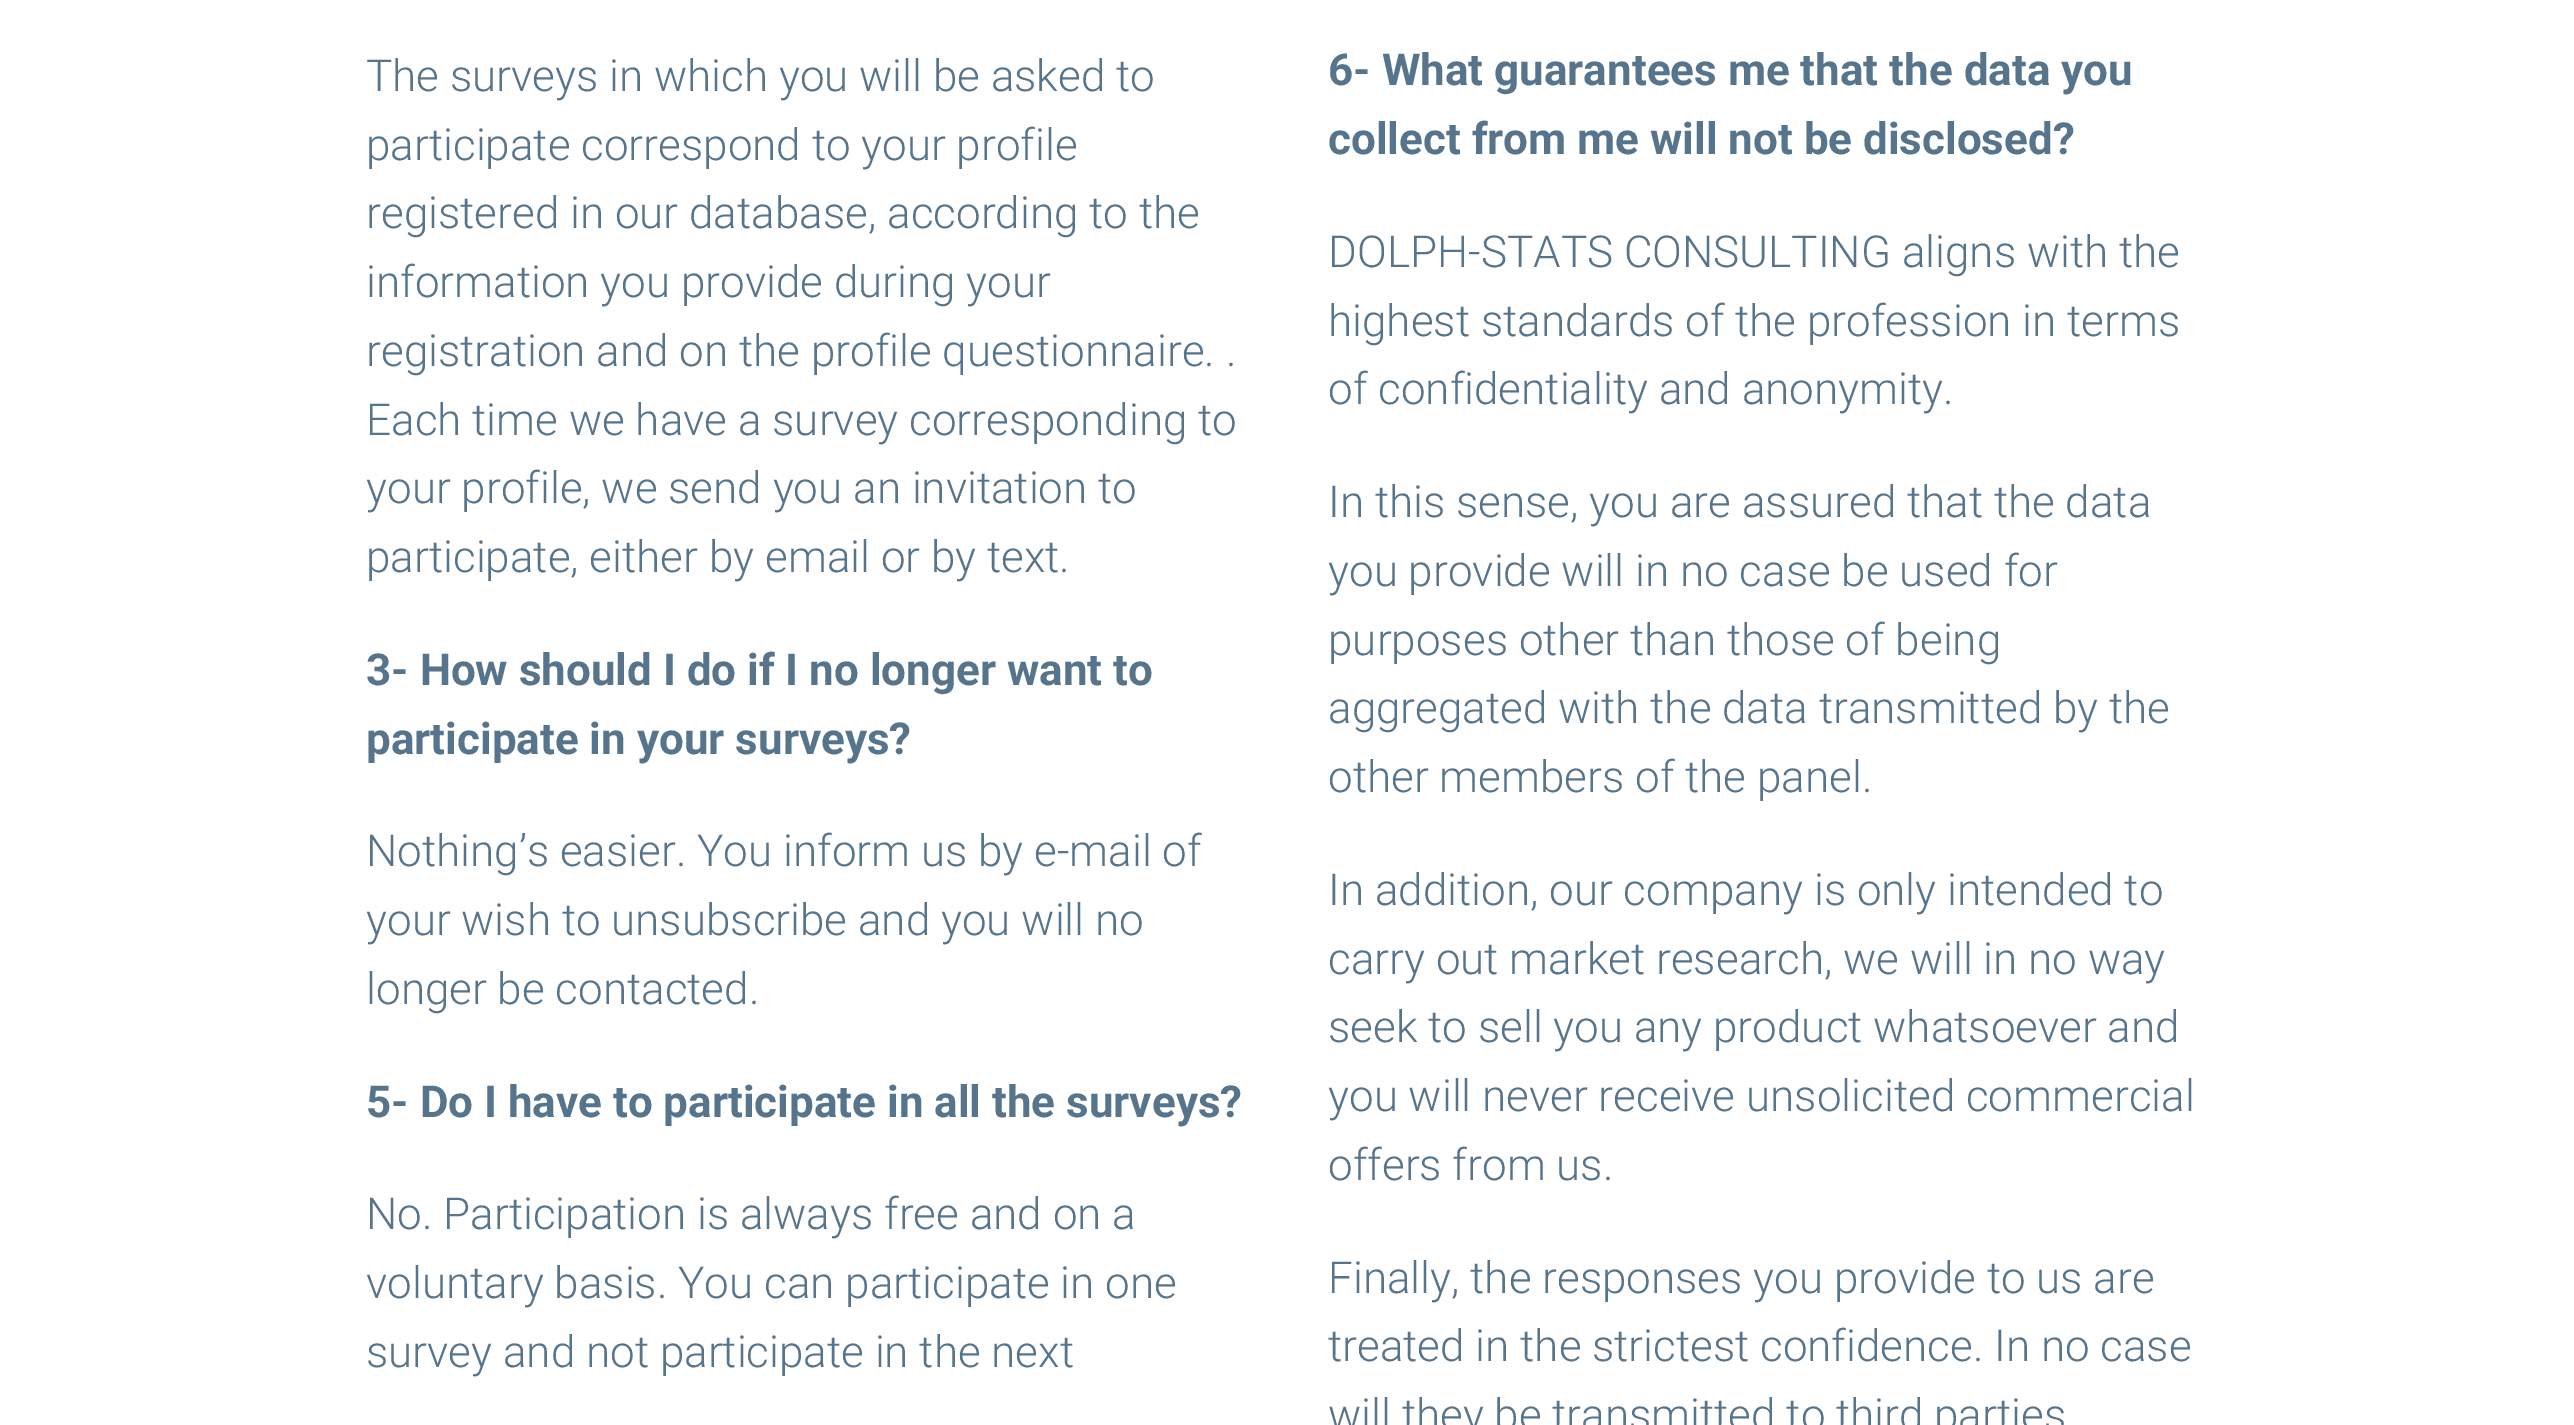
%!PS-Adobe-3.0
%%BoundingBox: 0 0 2574 1425
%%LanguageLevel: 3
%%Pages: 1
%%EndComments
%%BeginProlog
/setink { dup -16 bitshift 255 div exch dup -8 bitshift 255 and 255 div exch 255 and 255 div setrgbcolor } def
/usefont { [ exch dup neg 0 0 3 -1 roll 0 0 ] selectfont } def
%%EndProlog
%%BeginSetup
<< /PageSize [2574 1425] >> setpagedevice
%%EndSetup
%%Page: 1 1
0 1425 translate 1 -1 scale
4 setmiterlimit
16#FFFFFF setink
0 0 2574 1425 rectfill
/Roboto-Light 44 usefont
16#56758D setink
[
    [(The surveys in which you will be asked to) 366 91]
    [(participate correspond to your profile) 366 160]
    [(registered in our database, according to the) 366 228]
    [(information you provide during your) 366 297]
    [(registration and on the profile questionnaire. .) 366 366]
    [(Each time we have a survey corresponding to) 366 435]
    [(your profile, we send you an invitation to) 366 503]
    [(participate, either by email or by text.) 366 572]
] { aload pop moveto show } forall
/Roboto-Bold 44 usefont
366 685 moveto (3- How should I do if I no longer want to) show
366 754 moveto (participate in your surveys?) show
/Roboto-Light 44 usefont
[
    [(Nothing’s easier. You inform us by e-mail of) 366 866]
    [(your wish to unsubscribe and you will no) 366 935]
    [(longer be contacted.) 366 1004]
] { aload pop moveto show } forall
/Roboto-Bold 44 usefont
366 1117 moveto (5- Do I have to participate in all the surveys?) show
/Roboto-Light 44 usefont
[
    [(No. Participation is always free and on a) 366 1229]
    [(voluntary basis. You can participate in one) 366 1298]
    [(survey and not participate in the next) 366 1367]
] { aload pop moveto show } forall
/Roboto-Bold 44 usefont
1328 85 moveto (6- What guarantees me that the data you) show
1328 154 moveto (collect from me will not be disclosed?) show
/Roboto-Light 44 usefont
[
    [(DOLPH-STATS CONSULTING aligns with the) 1328 267]
    [(highest standards of the profession in terms) 1328 336]
    [(of confidentiality and anonymity.) 1328 404]
    [(In this sense, you are assured that the data) 1328 517]
    [(you provide will in no case be used for) 1328 586]
    [(purposes other than those of being) 1328 655]
    [(aggregated with the data transmitted by the) 1328 723]
    [(other members of the panel.) 1328 792]
    [(In addition, our company is only intended to) 1328 905]
    [(carry out market research, we will in no way) 1328 974]
    [(seek to sell you any product whatsoever and) 1328 1042]
    [(you will never receive unsolicited commercial) 1328 1111]
    [(offers from us.) 1328 1180]
    [(Finally, the responses you provide to us are) 1328 1293]
    [(treated in the strictest confidence. In no case) 1328 1361]
    [(will they be transmitted to third parties) 1328 1430]
] { aload pop moveto show } forall
showpage
%%EOF
